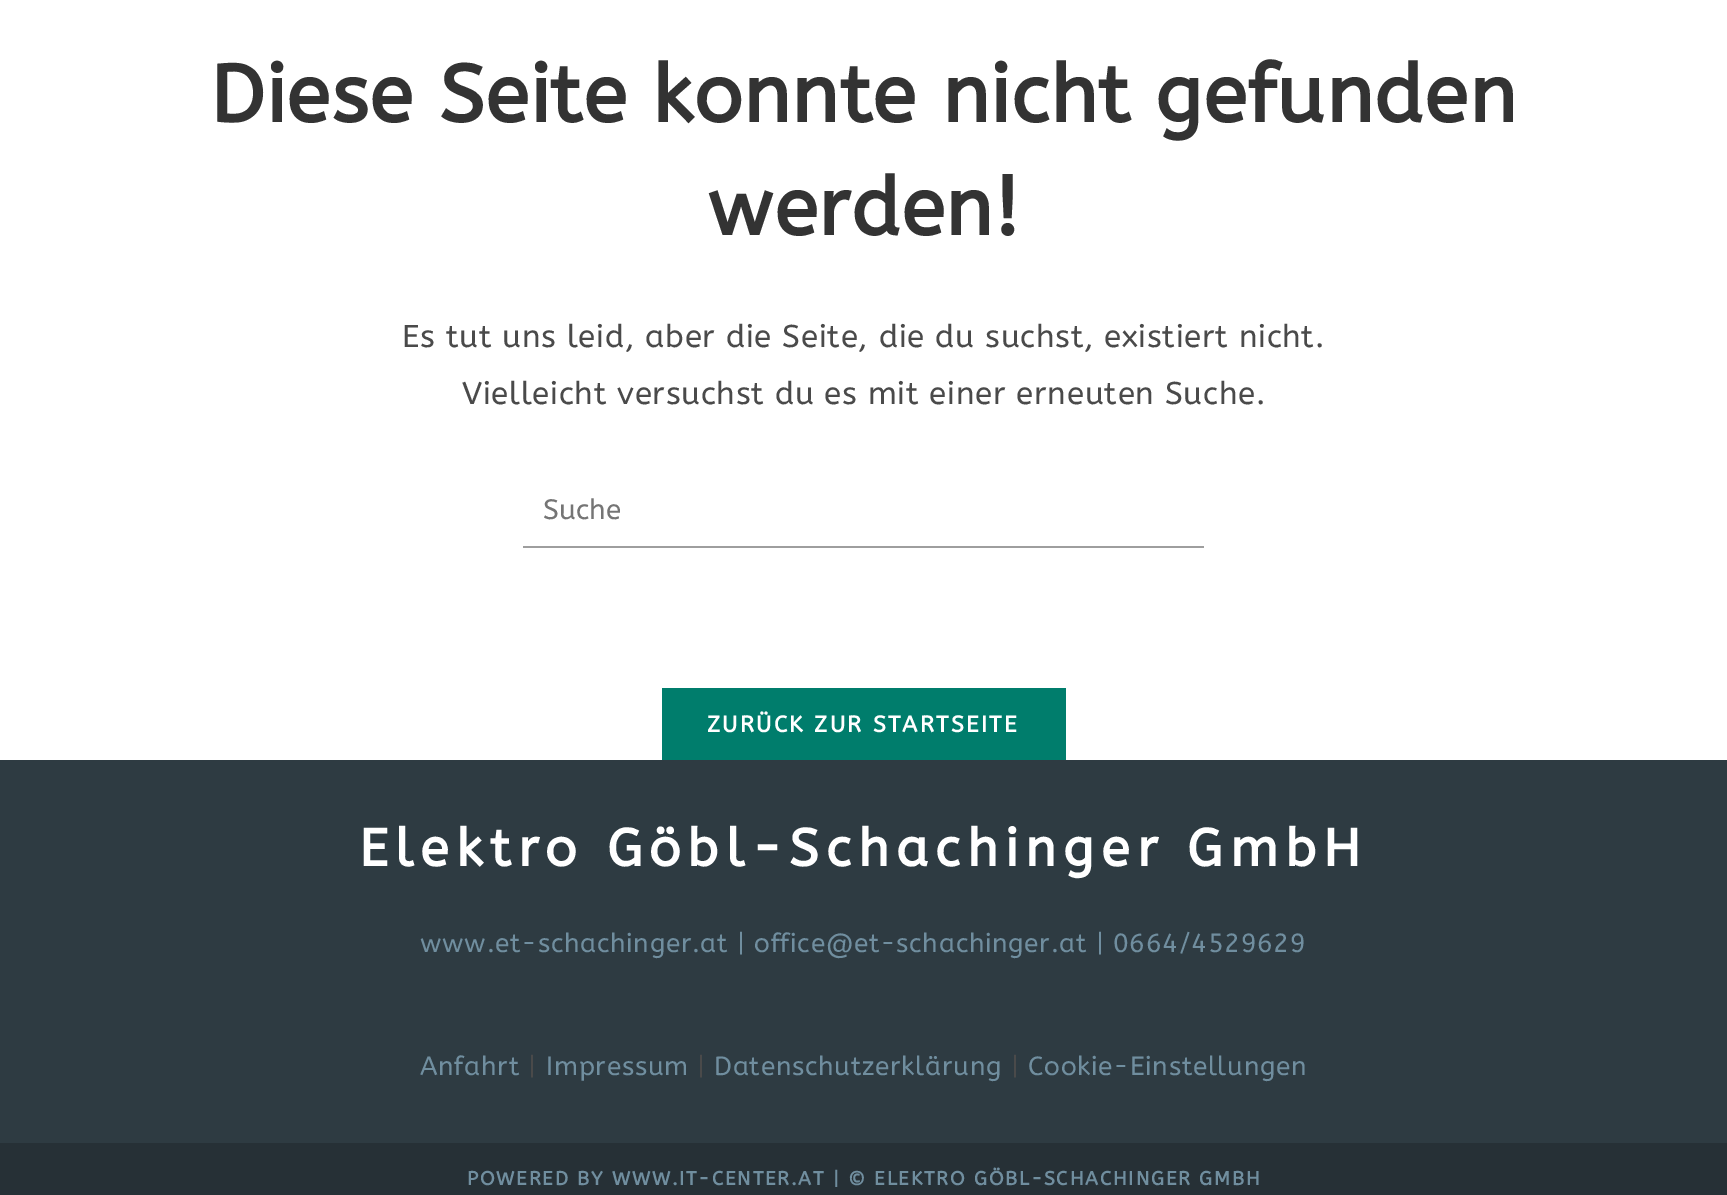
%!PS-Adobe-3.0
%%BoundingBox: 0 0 1727 1195
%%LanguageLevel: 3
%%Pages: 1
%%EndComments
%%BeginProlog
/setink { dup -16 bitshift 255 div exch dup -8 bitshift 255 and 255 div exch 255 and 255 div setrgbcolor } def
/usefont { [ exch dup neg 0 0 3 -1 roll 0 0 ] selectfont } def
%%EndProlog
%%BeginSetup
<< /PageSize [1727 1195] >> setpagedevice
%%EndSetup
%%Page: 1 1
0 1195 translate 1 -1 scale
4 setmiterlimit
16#FFFFFF setink
0 0 1727 1195 rectfill
/ABeeZee-Bold 80.5 usefont
16#333333 setink
210 122 moveto 0.7 0 (Diese Seite konnte nicht gefunden) ashow
707 235 moveto 0.7 0 (werden!) ashow
/ABeeZee-Regular 31.5 usefont
16#4A4A4A setink
402 347 moveto 0.7 0 (Es tut uns leid, aber die Seite, die du suchst, existiert nicht.) ashow
462 404 moveto 0.7 0 (Vielleicht versuchst du es mit einer erneuten Suche.) ashow
16#9E9E9E setink
523 546 681 2 rectfill
/ABeeZee-Regular 28 usefont
16#757575 setink
543 519 moveto (Suche) show
16#007D6C setink
662 688 404 72 rectfill
/ABeeZee-Bold 22.75 usefont
16#FFFFFF setink
707 732 moveto 2.25 0 (ZURÜCK ZUR STARTSEITE) ashow
16#2E3B42 setink
0 760 1727 383 rectfill
/ABeeZee-Bold 52.5 usefont
16#FFFFFF setink
359 866 moveto 7 0 (Elektro Göbl-Schachinger GmbH) ashow
/ABeeZee-Regular 26.25 usefont
16#708E9F setink
420 952 moveto 0.7 0 (www.et-schachinger.at | office@et-schachinger.at | 0664/4529629) ashow
420 1075 moveto 0.7 0 (Anfahrt) ashow
16#4A4A4A setink
528 1075 moveto 0.7 0 (|) ashow
16#708E9F setink
546 1075 moveto 0.7 0 (Impressum) ashow
16#4A4A4A setink
697 1075 moveto 0.7 0 (|) ashow
16#708E9F setink
714 1075 moveto 0.7 0 (Datenschutzerklärung) ashow
16#4A4A4A setink
1011 1075 moveto 0.7 0 (|) ashow
16#708E9F setink
1028 1075 moveto 0.7 0 (Cookie-Einstellungen) ashow
16#263036 setink
0 1143 1727 52 rectfill
/ABeeZee-Bold 19.25 usefont
16#708E9F setink
467 1185 moveto 1.75 0 (POWERED BY WWW.IT-CENTER.AT | © ELEKTRO GÖBL-SCHACHINGER GMBH) ashow
showpage
%%EOF
